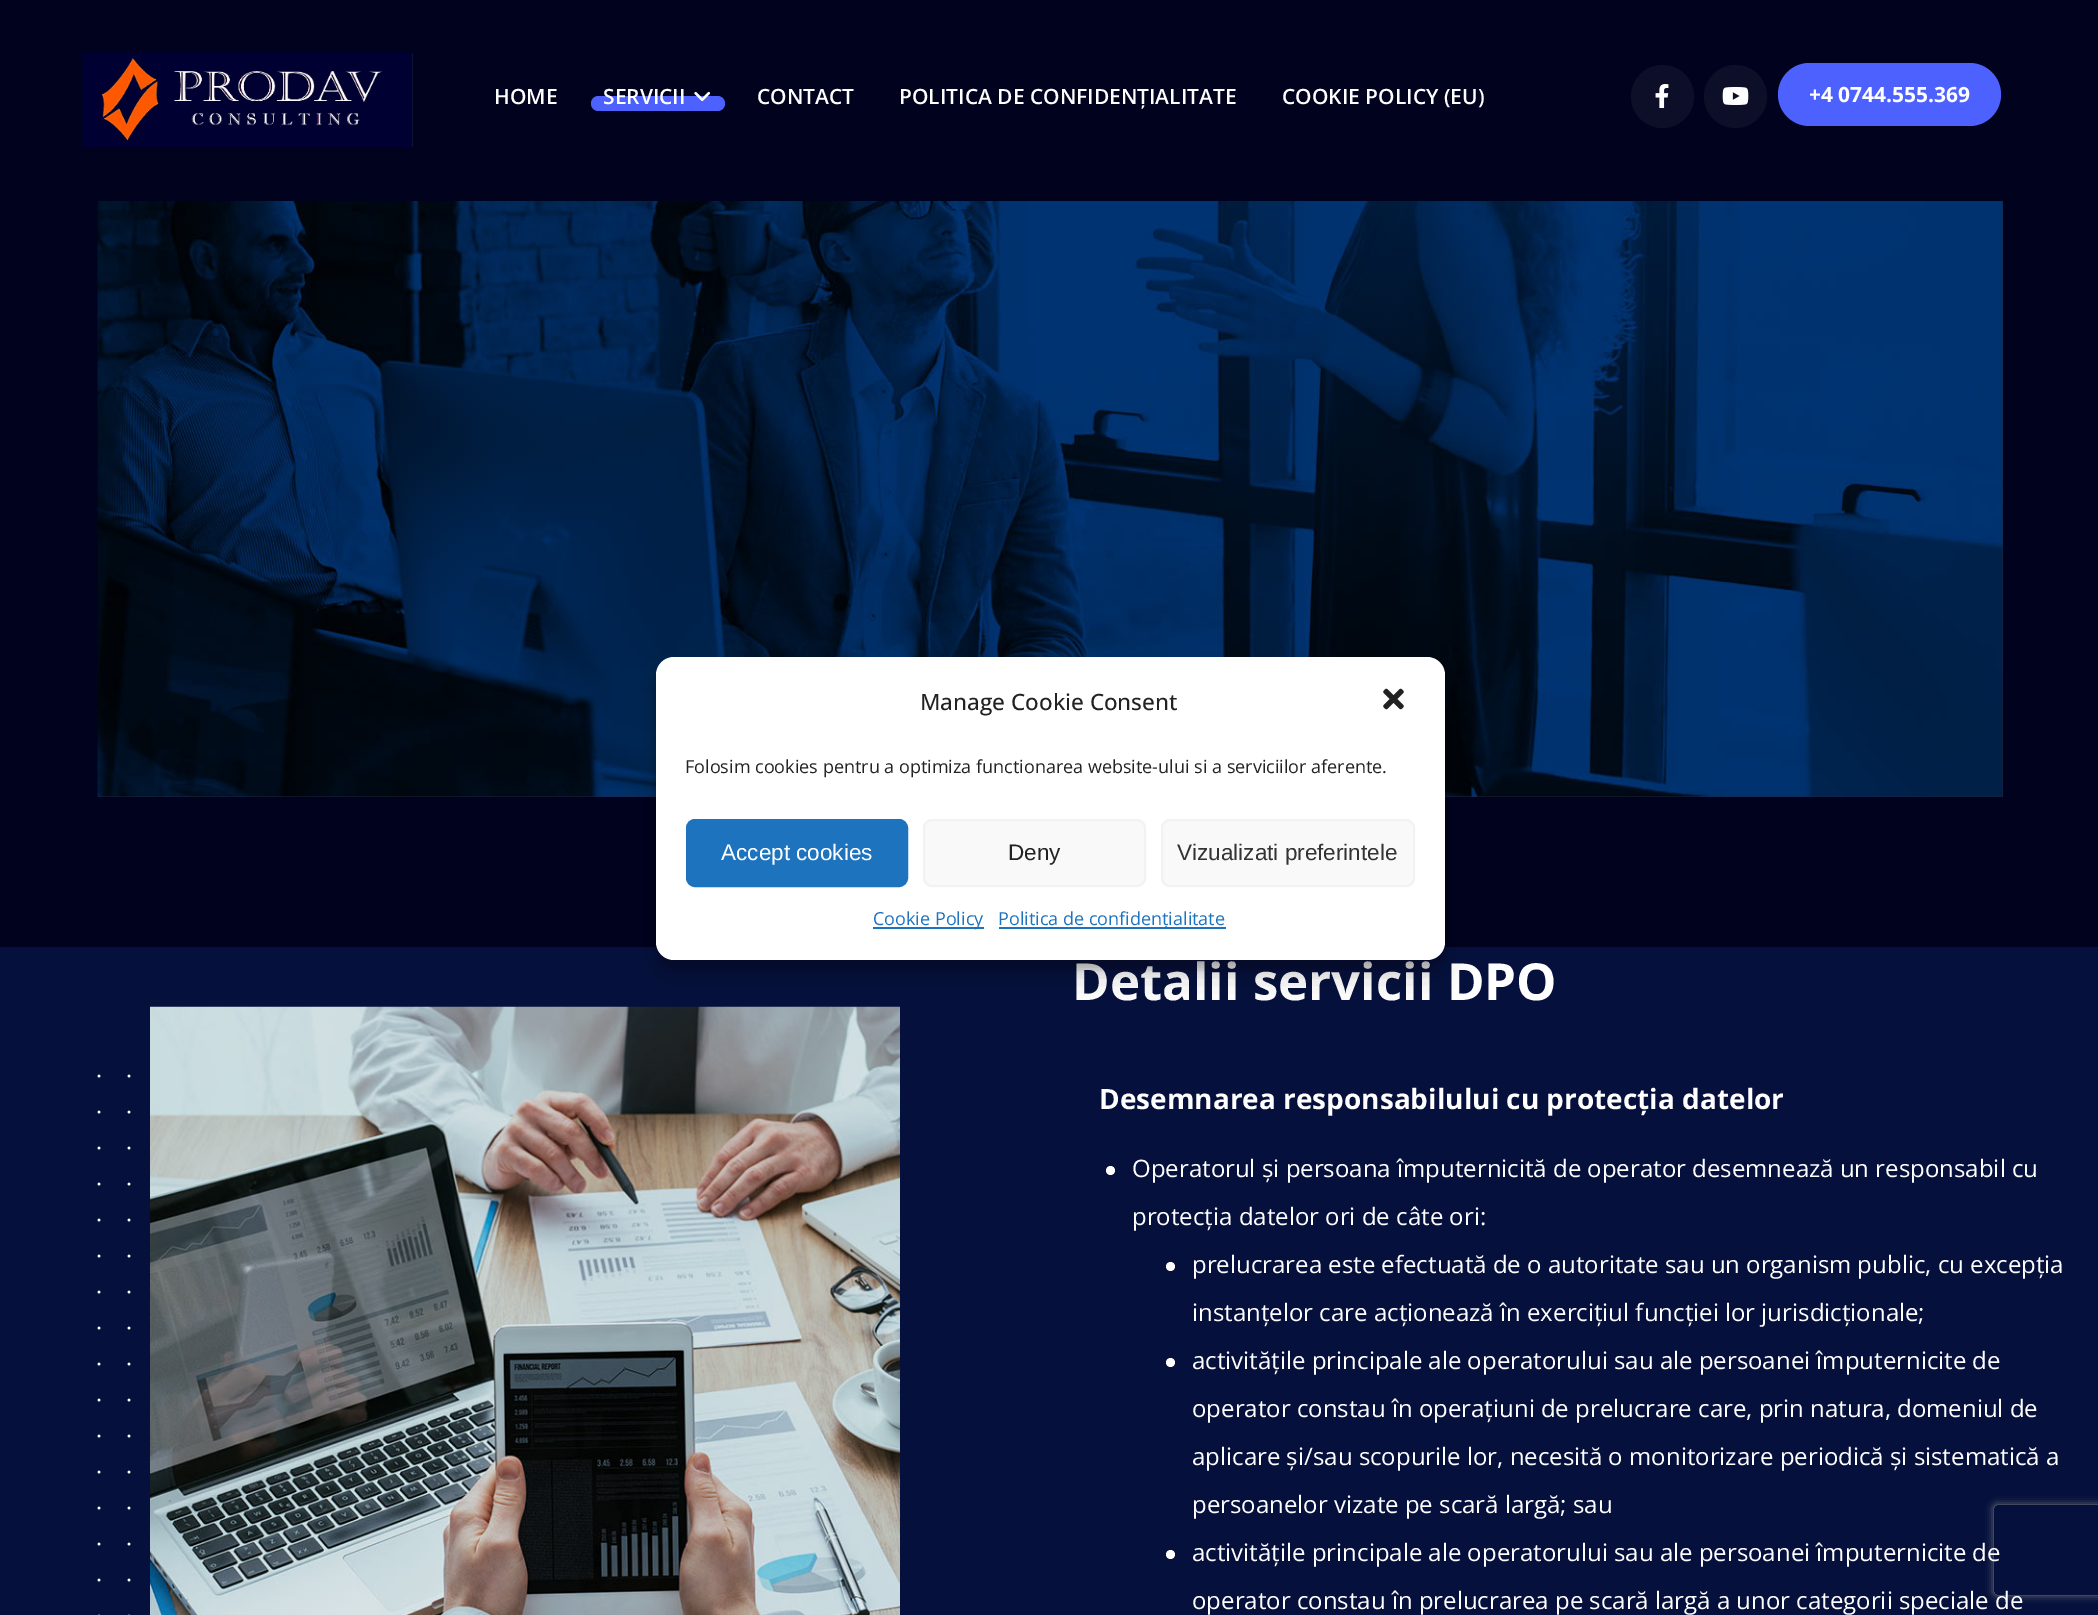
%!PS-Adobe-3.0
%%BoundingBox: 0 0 2098 1615
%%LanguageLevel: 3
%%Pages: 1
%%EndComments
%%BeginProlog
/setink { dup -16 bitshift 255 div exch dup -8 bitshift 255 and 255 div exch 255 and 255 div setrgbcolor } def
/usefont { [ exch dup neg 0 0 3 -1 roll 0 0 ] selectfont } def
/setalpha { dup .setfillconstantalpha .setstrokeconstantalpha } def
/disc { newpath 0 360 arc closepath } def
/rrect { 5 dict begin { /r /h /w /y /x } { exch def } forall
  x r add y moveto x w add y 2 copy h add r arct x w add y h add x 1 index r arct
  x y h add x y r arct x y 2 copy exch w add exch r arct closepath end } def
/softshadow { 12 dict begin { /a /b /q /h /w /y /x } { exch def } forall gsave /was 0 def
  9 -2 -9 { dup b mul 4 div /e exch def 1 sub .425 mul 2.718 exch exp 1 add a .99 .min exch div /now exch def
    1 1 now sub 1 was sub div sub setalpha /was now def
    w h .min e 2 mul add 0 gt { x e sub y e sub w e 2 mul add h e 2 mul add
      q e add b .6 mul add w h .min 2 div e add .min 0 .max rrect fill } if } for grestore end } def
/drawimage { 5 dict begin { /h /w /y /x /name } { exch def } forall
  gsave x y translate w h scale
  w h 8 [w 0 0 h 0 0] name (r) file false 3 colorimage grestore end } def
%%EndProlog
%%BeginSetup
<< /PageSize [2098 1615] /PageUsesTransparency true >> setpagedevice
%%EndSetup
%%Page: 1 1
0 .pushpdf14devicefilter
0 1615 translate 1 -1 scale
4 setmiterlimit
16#00021E setink
0 0 2098 1615 rectfill
16#212339 setink
412 53 1 94 rectfill
(img1.raw) 82 52 331 95 drawimage
/OpenSans-SemiBold 21 usefont
16#FFFFFF setink
494 104 moveto (HOME) show
16#4D61FF setink
591 96 134 15 7.5 rrect fill
16#FFFFFF setink
603 104 moveto (SERVICII) show
(img2.raw) 694 91 16 10 drawimage
[
    [(CONTACT) 757 104]
    [(POLITICA DE CONFIDENȚIALITATE) 899 104]
    [(COOKIE POLICY \(EU\)) 1282 104]
] { aload pop moveto show } forall
16#0D0F29 setink
1662.5 96.5 31.5 disc fill
(img3.raw) 1655 84 14 24 drawimage
1735.5 96.5 31.5 disc fill
(img4.raw) 1722 87 27 18 drawimage
16#4D61FF setink
1778 63 223 63 31.5 rrect fill
/OpenSans-Bold 21 usefont
16#FFFFFF setink
1809 102 moveto (+4 0744.555.369) show
16#212339 setink
98 201 1905 596 rectfill
(img5.raw) 97 201 1906 596 drawimage
16#05103C setink
0 947 2098 668 rectfill
(img6.raw) 97 1074 34 541 drawimage
(img7.raw) 150 1006 750 609 drawimage
/OpenSans-Bold 51 usefont
16#FFFFFF setink
1072 1000 moveto (Detalii servicii DPO) show
/OpenSans-Bold 28 usefont
1099 1109 moveto (Desemnarea responsabilului cu protecția datelor) show
1110.5 1170.5 4.5 disc fill
/OpenSans-Regular 24 usefont
1132 1177 moveto (Operatorul și persoana împuternicită de operator desemnează un responsabil cu) show
1132 1225 moveto (protecția datelor ori de câte ori:) show
1170.5 1266.5 4.5 disc fill
1192 1273 moveto (prelucrarea este efectuată de o autoritate sau un organism public, cu excepția) show
1192 1321 moveto (instanțelor care acționează în exercițiul funcției lor jurisdicționale;) show
1170.5 1362.5 4.5 disc fill
[
    [(activitățile principale ale operatorului sau ale persoanei împuternicite de) 1192 1369]
    [(operator constau în operațiuni de prelucrare care, prin natura, domeniul de) 1192 1417]
    [(aplicare și/sau scopurile lor, necesită o monitorizare periodică și sistematică a) 1192 1465]
    [(persoanelor vizate pe scară largă; sau) 1192 1513]
] { aload pop moveto show } forall
1170.5 1554.5 4.5 disc fill
gsave
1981 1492 moveto 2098 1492 lineto 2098 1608 lineto 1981 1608 lineto closepath 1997 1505 moveto 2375 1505 lineto 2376.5 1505 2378 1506.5 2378 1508 curveto 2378 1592 lineto 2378 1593.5 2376.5 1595 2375 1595 curveto 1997 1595 lineto 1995.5 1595 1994 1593.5 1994 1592 curveto 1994 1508 lineto 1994 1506.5 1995.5 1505 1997 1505 curveto closepath eoclip newpath
16#808080 setink
1994 1505 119 90 3 4 1 softshadow
grestore
1192 1561 moveto (activitățile principale ale operatorului sau ale persoanei împuternicite de) show
1192 1609 moveto (operator constau în prelucrarea pe scară largă a unor categorii speciale de) show
16#000000 setink
656 666 789 303 18 4.5 0.23 softshadow
656 672 789 303 18 15 0.19 softshadow
16#FFFFFF setink
656 657 789 303 18 rrect fill
/OpenSans-Medium 22.5 usefont
16#222222 setink
920 710 moveto (Manage Cookie Consent) show
(img8.raw) 1383 688 21 22 drawimage
/OpenSans-Regular 18 usefont
685 773 moveto (Folosim cookies pentru a optimiza functionarea website-ului si a serviciilor aferente.) show
16#1E73BE setink
687 820 220 66 8 rrect gsave fill grestore
2 setlinewidth
stroke
/LiberationSans-Regular 22.5 usefont
16#FFFFFF setink
721 860 moveto (Accept cookies) show
16#F9F9F9 setink
924 820 221 66 8 rrect gsave fill grestore
16#F2F2F2 setink
stroke
16#222222 setink
1008 860 moveto (Deny) show
16#F9F9F9 setink
1162 820 252 66 8 rrect gsave fill grestore
16#F2F2F2 setink
stroke
16#333333 setink
1177 860 moveto (Vizualizati preferintele) show
16#1E73BE setink
873 927 111 2 rectfill
/OpenSans-Regular 18 usefont
873 925 moveto (Cookie Policy) show
999 927 227 2 rectfill
998 925 moveto (Politica de confidențialitate) show
.poppdf14devicefilter showpage
%%EOF
